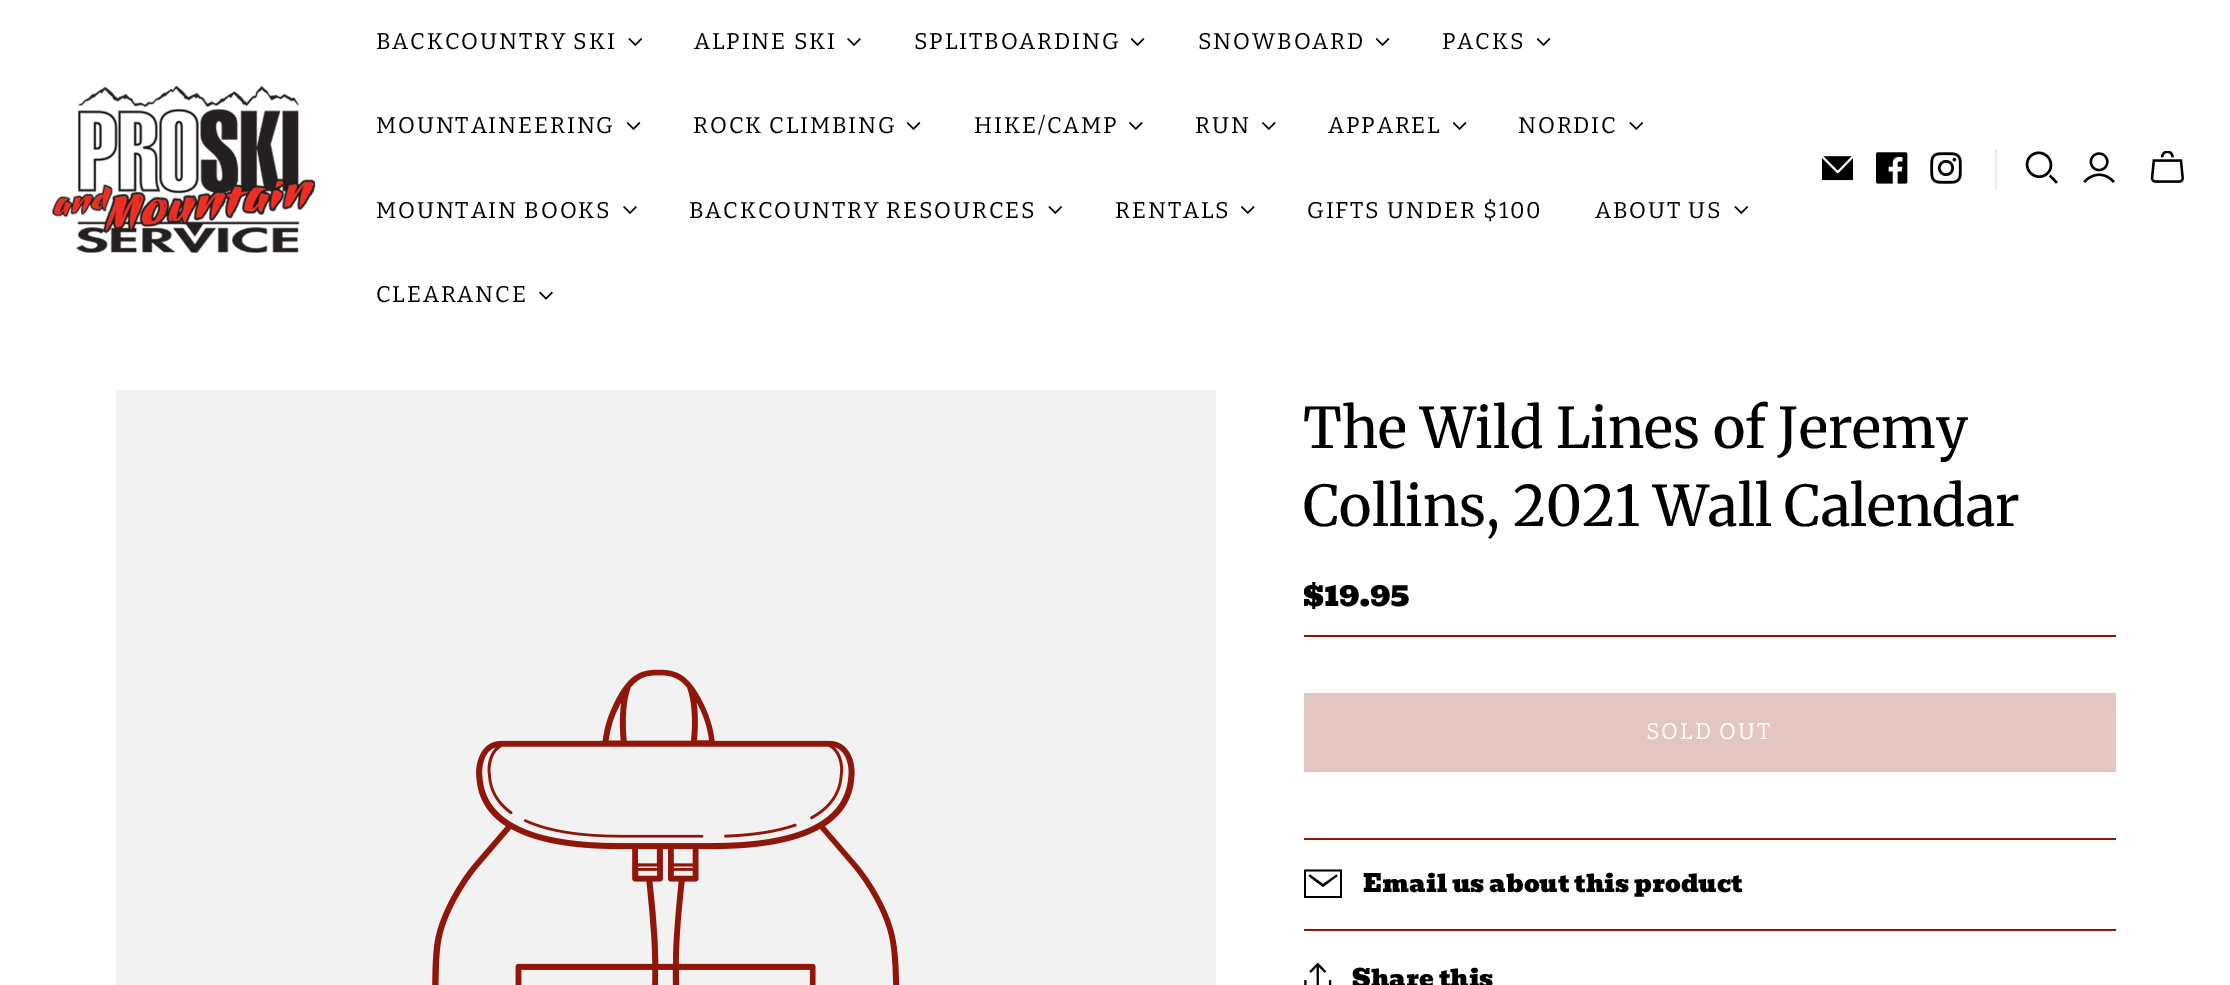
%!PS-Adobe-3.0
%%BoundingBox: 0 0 2230 985
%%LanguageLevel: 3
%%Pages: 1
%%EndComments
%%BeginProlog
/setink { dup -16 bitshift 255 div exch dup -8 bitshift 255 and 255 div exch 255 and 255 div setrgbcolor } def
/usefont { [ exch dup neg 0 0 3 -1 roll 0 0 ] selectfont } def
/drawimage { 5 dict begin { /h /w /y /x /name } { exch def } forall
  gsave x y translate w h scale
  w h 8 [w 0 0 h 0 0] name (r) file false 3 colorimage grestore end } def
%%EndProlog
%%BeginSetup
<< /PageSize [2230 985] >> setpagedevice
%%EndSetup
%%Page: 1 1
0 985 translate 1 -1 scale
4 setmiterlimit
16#FFFFFF setink
0 0 2230 985 rectfill
(img1.raw) 52 85 263 168 drawimage
/Bitter-Regular 22.75 usefont
16#000000 setink
376 49 moveto 1.8 0 (BACKCOUNTRY SKI) ashow
(img2.raw) 628 38 14 8 drawimage
694 49 moveto 1.8 0 (ALPINE SKI) ashow
(img3.raw) 847 38 14 8 drawimage
914 49 moveto 1.8 0 (SPLITBOARDING) ashow
(img4.raw) 1131 38 14 8 drawimage
1198 49 moveto 1.8 0 (SNOWBOARD) ashow
(img4.raw) 1376 38 14 8 drawimage
1442 49 moveto 1.8 0 (PACKS) ashow
(img4.raw) 1537 38 14 8 drawimage
376 133 moveto 1.8 0 (MOUNTAINEERING) ashow
(img4.raw) 627 122 14 8 drawimage
693 133 moveto 1.8 0 (ROCK CLIMBING) ashow
(img4.raw) 907 122 14 8 drawimage
974 133 moveto 1.8 0 (HIKE/CAMP) ashow
(img5.raw) 1129 122 14 8 drawimage
1195 133 moveto 1.8 0 (RUN) ashow
(img5.raw) 1262 122 14 8 drawimage
1328 133 moveto 1.8 0 (APPAREL) ashow
(img4.raw) 1453 122 14 8 drawimage
1518 133 moveto 1.8 0 (NORDIC) ashow
(img2.raw) 1629 122 14 8 drawimage
376 218 moveto 1.8 0 (MOUNTAIN BOOKS) ashow
(img3.raw) 623 206 14 8 drawimage
689 218 moveto 1.8 0 (BACKCOUNTRY RESOURCES) ashow
(img2.raw) 1048 206 14 8 drawimage
1115 218 moveto 1.8 0 (RENTALS) ashow
(img5.raw) 1241 206 14 8 drawimage
1307 218 moveto 1.8 0 (GIFTS UNDER $100) ashow
1595 218 moveto 1.8 0 (ABOUT US) ashow
(img2.raw) 1734 206 14 8 drawimage
376 302 moveto 1.8 0 (CLEARANCE) ashow
(img6.raw) 539 291 14 9 drawimage
(img7.raw) 1822 156 31 25 drawimage
(img8.raw) 1876 152 32 32 drawimage
(img9.raw) 1930 152 32 32 drawimage
16#EBEBEB setink
1995 149 2 40 rectfill
(img10.raw) 2025 151 33 33 drawimage
(img11.raw) 2083 152 32 31 drawimage
(img12.raw) 2150 151 34 32 drawimage
16#F2F2F2 setink
116 390 1100 595 rectfill
(img13.raw) 432 669 468 316 drawimage
/Merriweather-Regular 56 usefont
16#000000 setink
1303 448 moveto (The Wild Lines of Jeremy) show
1303 526 moveto (Collins, 2021 Wall Calendar) show
16#8F1608 setink
1304 635 812 2 rectfill
/Bevan-Regular 31.5 usefont
16#000000 setink
1303 606 moveto ($19.95) show
16#8F1608 setink
1304 838 812 2 rectfill
16#E3C5C1 setink
1304 693 812 79 rectfill
/Bitter-Regular 22.75 usefont
16#FFFFFF setink
1646 739 moveto 1.8 0 (SOLD OUT) ashow
16#8F1608 setink
1304 929 812 2 rectfill
16#000000 setink
1306 871.5 moveto 1340 871.5 lineto 1340 896 lineto 1306 896 lineto closepath 1304 869.5 moveto 1342 869.5 lineto 1342 898 lineto 1304 898 lineto closepath 1308.5 876 moveto 1323 887 lineto 1337.5 876 lineto 1336.5 874.5 lineto 1323 884 lineto 1310 874.5 lineto closepath eofill
/Bevan-Regular 24.5 usefont
1363 892 moveto (Email us about this product) show
(img14.raw) 1304 963 28 22 drawimage
1352 987 moveto (Share this) show
showpage
%%EOF
